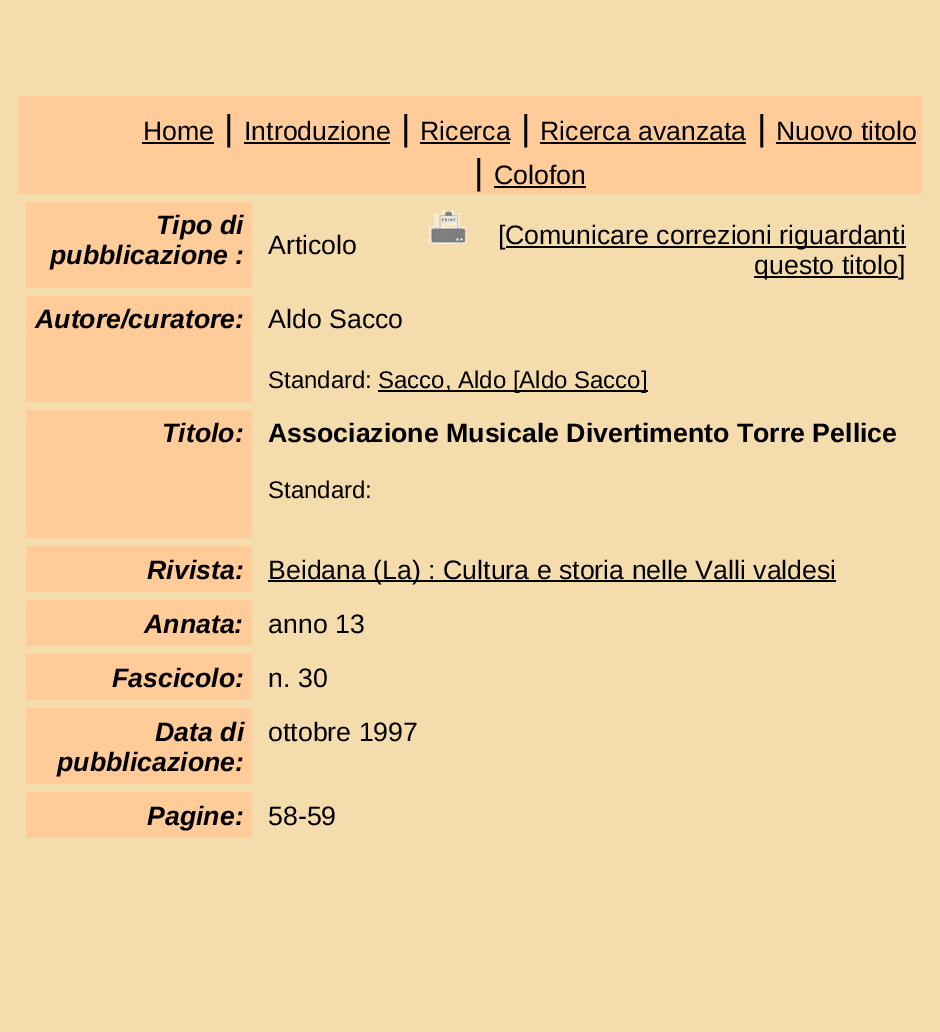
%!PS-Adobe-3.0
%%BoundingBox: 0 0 940 1032
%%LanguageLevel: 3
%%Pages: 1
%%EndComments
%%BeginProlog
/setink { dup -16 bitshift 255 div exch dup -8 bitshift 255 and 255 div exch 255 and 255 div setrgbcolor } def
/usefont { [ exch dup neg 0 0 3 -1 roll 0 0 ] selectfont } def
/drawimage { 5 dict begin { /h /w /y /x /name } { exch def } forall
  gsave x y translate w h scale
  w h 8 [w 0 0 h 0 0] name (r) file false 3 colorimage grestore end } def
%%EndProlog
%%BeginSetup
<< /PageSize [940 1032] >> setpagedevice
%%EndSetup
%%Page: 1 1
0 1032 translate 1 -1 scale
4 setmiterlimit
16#F5DCAD setink
0 0 940 1032 rectfill
16#FFCC99 setink
18 96 904 98 rectfill
/LiberationSans-Regular 26.7 usefont
16#000000 setink
143 140 moveto (Home) show
142 142 72 2 rectfill
/LiberationSans-Regular 36 usefont
224 140 moveto (|) show
/LiberationSans-Regular 26.7 usefont
244 140 moveto (Introduzione) show
244 142 146 2 rectfill
/LiberationSans-Regular 36 usefont
401 140 moveto (|) show
/LiberationSans-Regular 26.7 usefont
420 140 moveto (Ricerca) show
420 142 90 2 rectfill
/LiberationSans-Regular 36 usefont
521 140 moveto (|) show
/LiberationSans-Regular 26.7 usefont
540 140 moveto (Ricerca avanzata) show
540 142 206 2 rectfill
/LiberationSans-Regular 36 usefont
757 140 moveto (|) show
/LiberationSans-Regular 26.7 usefont
776 140 moveto (Nuovo titolo) show
776 142 140 2 rectfill
/LiberationSans-Regular 36 usefont
474 184 moveto (|) show
/LiberationSans-Regular 26.7 usefont
494 184 moveto (Colofon) show
494 186 92 2 rectfill
16#FFCC99 setink
26 202 226 86 rectfill
/LiberationSans-BoldItalic 26.7 usefont
16#000000 setink
156 234 moveto (Tipo di) show
50 264 moveto (pubblicazione :) show
/LiberationSans-Regular 26.7 usefont
268 254 moveto (Articolo) show
(img1.raw) 428 210 39 34 drawimage
498 244 moveto ([) show
506 246 400 2 rectfill
505 244 moveto (Comunicare correzioni riguardanti) show
754 276 144 2 rectfill
754 274 moveto (questo titolo]) show
16#FFCC99 setink
26 296 226 106 rectfill
/LiberationSans-BoldItalic 26.7 usefont
16#000000 setink
35 328 moveto (Autore/curatore:) show
/LiberationSans-Regular 26.7 usefont
268 328 moveto (Aldo Sacco) show
/LiberationSans-Regular 24 usefont
268 388 moveto (Standard:) show
378 390 270 2 rectfill
378 388 moveto (Sacco, Aldo [Aldo Sacco]) show
16#FFCC99 setink
26 410 226 128 rectfill
/LiberationSans-BoldItalic 26.7 usefont
16#000000 setink
162 442 moveto (Titolo:) show
/LiberationSans-Bold 26.7 usefont
268 442 moveto (Associazione Musicale Divertimento Torre Pellice) show
/LiberationSans-Regular 24 usefont
268 498 moveto (Standard:) show
16#FFCC99 setink
26 546 226 46 rectfill
/LiberationSans-BoldItalic 26.7 usefont
16#000000 setink
147 579 moveto (Rivista:) show
268 580 568 2 rectfill
/LiberationSans-Regular 26.7 usefont
268 579 moveto (Beidana \(La\) : Cultura e storia nelle Valli valdesi) show
16#FFCC99 setink
26 600 226 46 rectfill
/LiberationSans-BoldItalic 26.7 usefont
16#000000 setink
144 633 moveto (Annata:) show
/LiberationSans-Regular 26.7 usefont
268 633 moveto (anno 13) show
16#FFCC99 setink
26 654 226 46 rectfill
/LiberationSans-BoldItalic 26.7 usefont
16#000000 setink
112 687 moveto (Fascicolo:) show
/LiberationSans-Regular 26.7 usefont
268 687 moveto (n. 30) show
16#FFCC99 setink
26 708 226 76 rectfill
/LiberationSans-BoldItalic 26.7 usefont
16#000000 setink
155 741 moveto (Data di) show
57 771 moveto (pubblicazione:) show
/LiberationSans-Regular 26.7 usefont
268 741 moveto (ottobre 1997) show
16#FFCC99 setink
26 792 226 46 rectfill
/LiberationSans-BoldItalic 26.7 usefont
16#000000 setink
147 825 moveto (Pagine:) show
/LiberationSans-Regular 26.7 usefont
268 825 moveto (58-59) show
showpage
%%EOF
